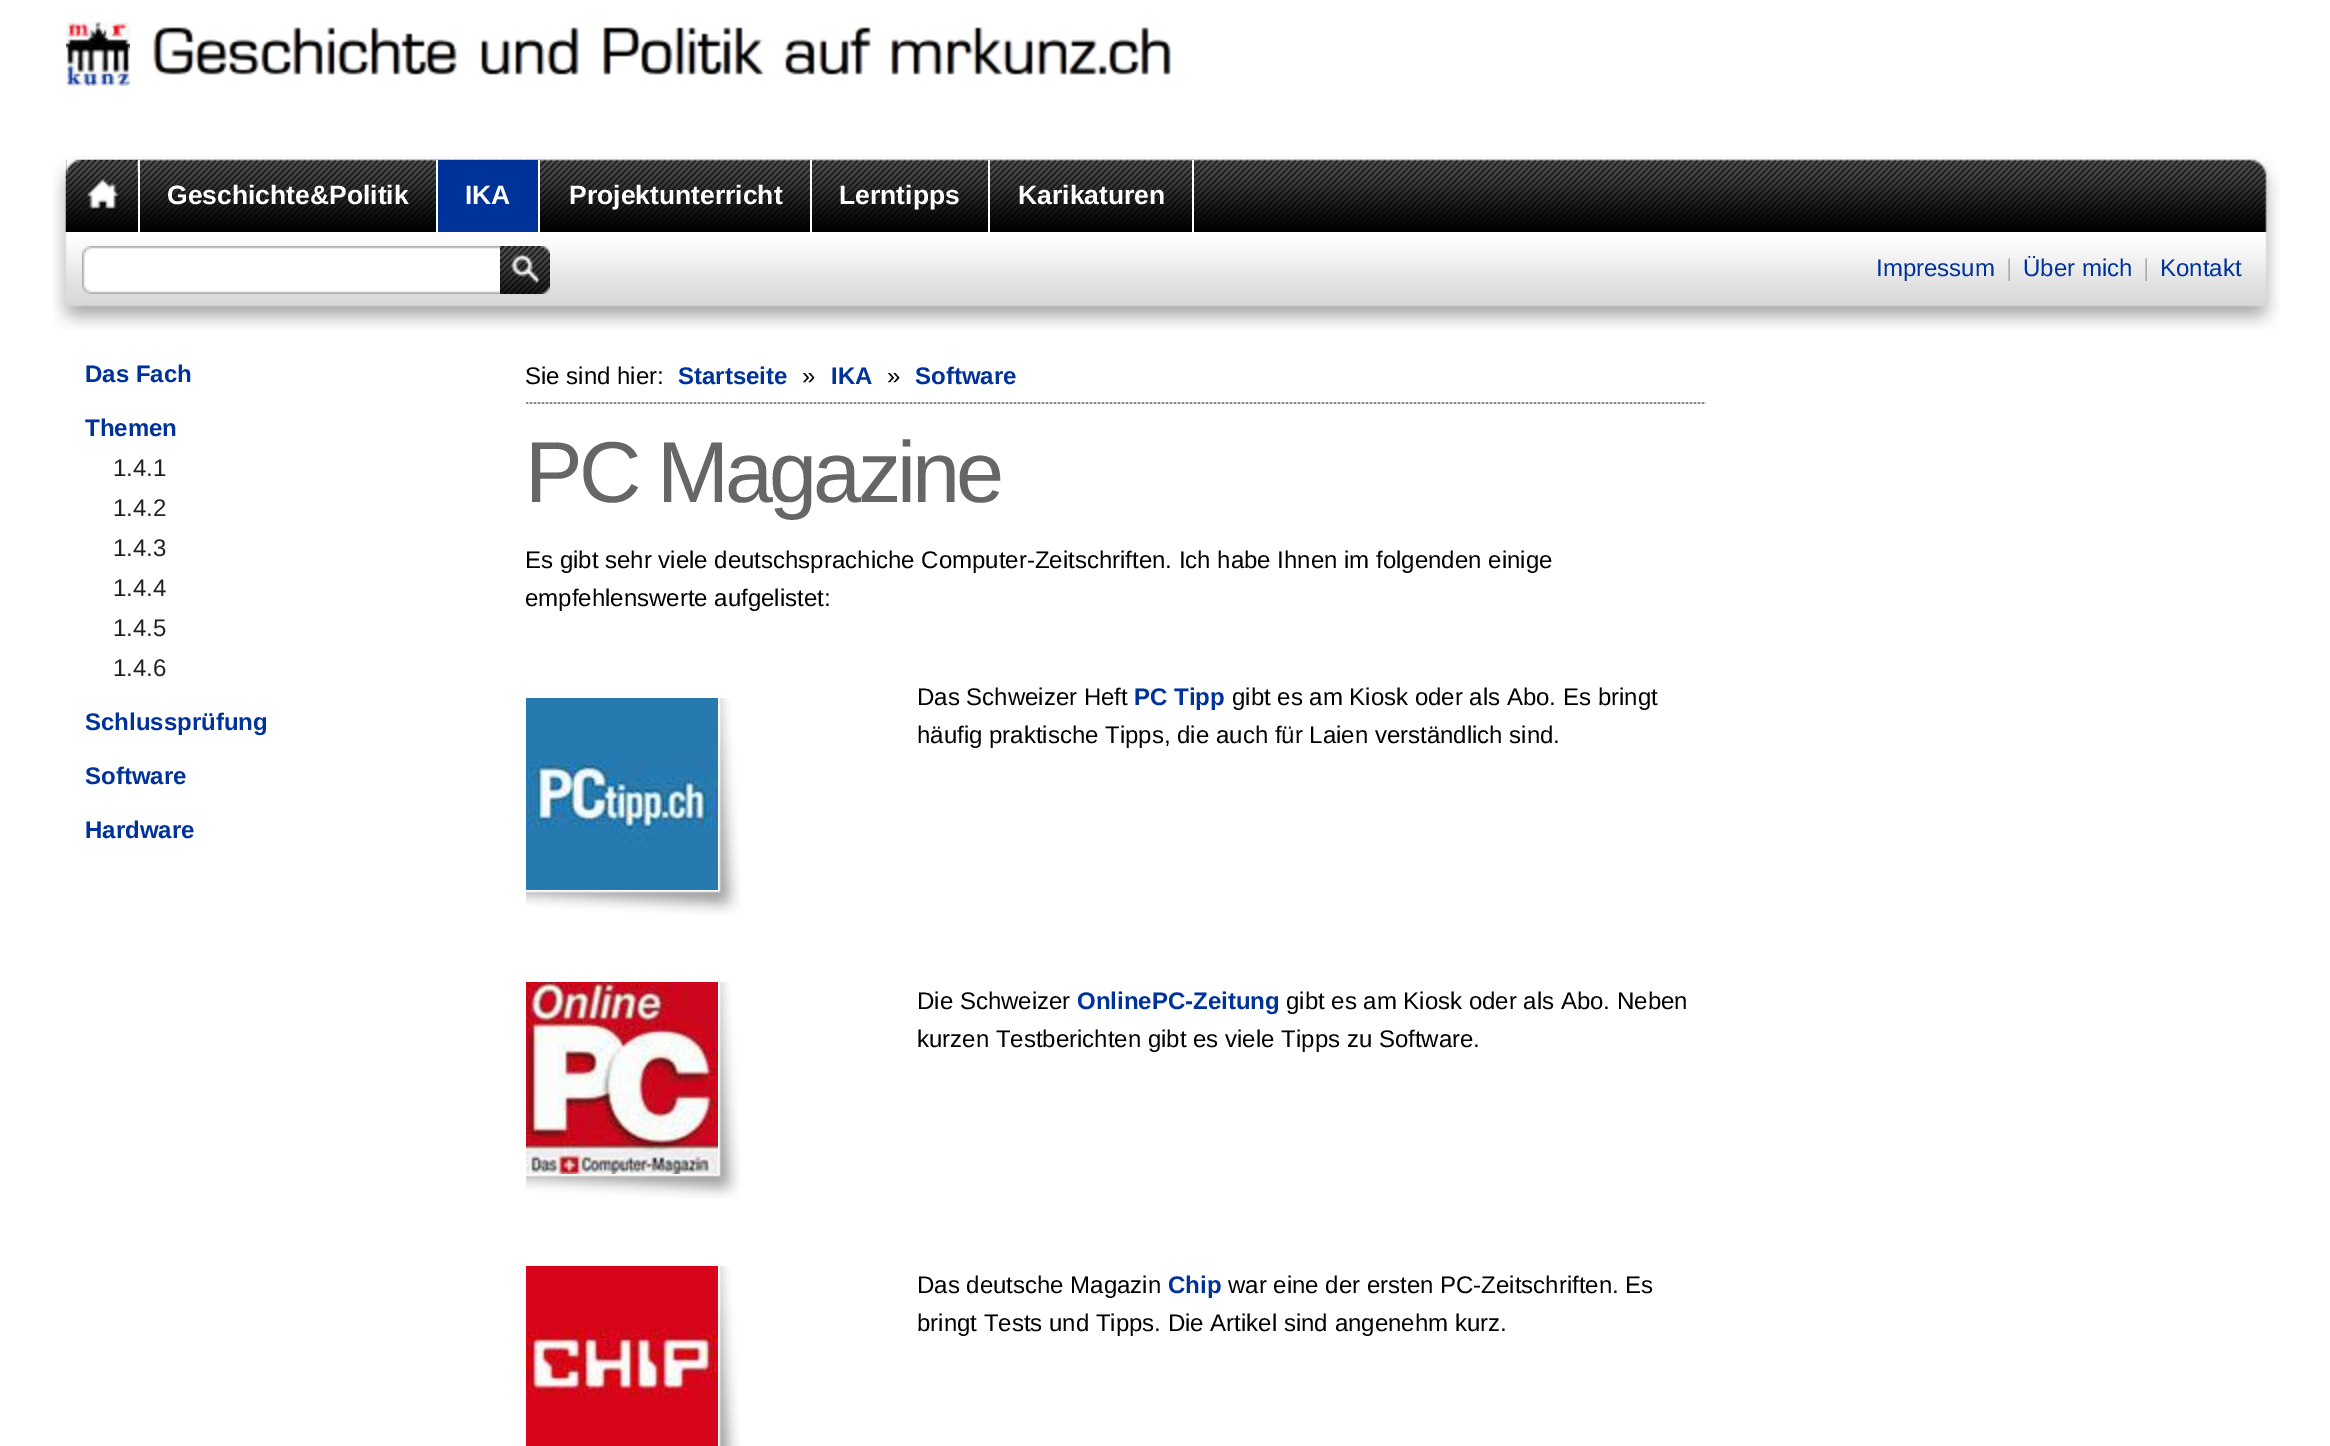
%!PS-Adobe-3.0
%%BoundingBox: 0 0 2330 1446
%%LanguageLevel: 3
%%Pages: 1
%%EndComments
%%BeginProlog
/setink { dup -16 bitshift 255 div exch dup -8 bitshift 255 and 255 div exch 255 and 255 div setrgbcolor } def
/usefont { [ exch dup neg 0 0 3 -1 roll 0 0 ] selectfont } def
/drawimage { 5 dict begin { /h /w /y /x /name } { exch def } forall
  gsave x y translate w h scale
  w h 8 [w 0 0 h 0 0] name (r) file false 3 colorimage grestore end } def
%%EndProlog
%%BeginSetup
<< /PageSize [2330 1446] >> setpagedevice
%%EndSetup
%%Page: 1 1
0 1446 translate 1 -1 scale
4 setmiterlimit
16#FFFFFF setink
0 0 2330 1446 rectfill
(img1.raw) 66 22 64 64 drawimage
(img2.raw) 153 27 1018 48 drawimage
(img3.raw) 52 156 2228 76 drawimage
(img4.raw) 66 160 72 72 drawimage
138 160 2 72 rectfill
436 160 2 72 rectfill
/LiberationSans-Bold 26.5 usefont
167 204 moveto (Geschichte&Politik) show
16#003399 setink
438 160 100 72 rectfill
16#FFFFFF setink
538 160 2 72 rectfill
465 204 moveto (IKA) show
810 160 2 72 rectfill
569 204 moveto (Projektunterricht) show
988 160 2 72 rectfill
839 204 moveto (Lerntipps) show
1192 160 2 72 rectfill
1018 204 moveto (Karikaturen) show
(img5.raw) 52 232 2228 98 drawimage
(img6.raw) 82 246 418 48 drawimage
(img7.raw) 500 246 50 48 drawimage
/LiberationSans-Regular 24 usefont
16#003399 setink
1876 276 moveto (Impressum) show
16#AFAFAF setink
2006 276 moveto (|) show
16#003399 setink
2023 276 moveto (Über mich) show
16#AFAFAF setink
2143 276 moveto (|) show
16#003399 setink
2160 276 moveto (Kontakt) show
/LiberationSans-Bold 24 usefont
85 382 moveto (Das Fach) show
85 436 moveto (Themen) show
/LiberationSans-Regular 24 usefont
16#222222 setink
[
    [(1.4.1) 113 476]
    [(1.4.2) 113 516]
    [(1.4.3) 113 556]
    [(1.4.4) 113 596]
    [(1.4.5) 113 636]
    [(1.4.6) 113 676]
] { aload pop moveto show } forall
/LiberationSans-Bold 24 usefont
16#003399 setink
[
    [(Schlussprüfung) 85 730]
    [(Software) 85 784]
    [(Hardware) 85 838]
] { aload pop moveto show } forall
(img8.raw) 526 402 1180 2 drawimage
/LiberationSans-Regular 24 usefont
16#000000 setink
525 384 moveto (Sie sind hier:) show
/LiberationSans-Bold 24 usefont
16#003399 setink
678 384 moveto (Startseite) show
/LiberationSans-Regular 24 usefont
16#000000 setink
802 384 moveto (») show
/LiberationSans-Bold 24 usefont
16#003399 setink
831 384 moveto (IKA) show
/LiberationSans-Regular 24 usefont
16#000000 setink
887 384 moveto (») show
/LiberationSans-Bold 24 usefont
16#003399 setink
915 384 moveto (Software) show
/LiberationSans-Regular 86.5 usefont
16#666666 setink
525 502 moveto -4 0 (PC Magazine) ashow
/LiberationSans-Regular 24 usefont
16#000000 setink
525 568 moveto (Es gibt sehr viele deutschsprachiche Computer-Zeitschriften. Ich habe Ihnen im folgenden einige) show
525 606 moveto (empfehlenswerte aufgelistet:) show
(img9.raw) 526 698 214 217 drawimage
917 705 moveto (Das Schweizer Heft) show
/LiberationSans-Bold 24 usefont
16#003399 setink
1134 705 moveto (PC Tipp) show
/LiberationSans-Regular 24 usefont
16#000000 setink
1232 705 moveto (gibt es am Kiosk oder als Abo. Es bringt) show
917 743 moveto (häufig praktische Tipps, die auch für Laien verständlich sind.) show
(img10.raw) 526 982 214 217 drawimage
917 1009 moveto (Die Schweizer) show
/LiberationSans-Bold 24 usefont
16#003399 setink
1077 1009 moveto (OnlinePC-Zeitung) show
/LiberationSans-Regular 24 usefont
16#000000 setink
1286 1009 moveto (gibt es am Kiosk oder als Abo. Neben) show
917 1047 moveto (kurzen Testberichten gibt es viele Tipps zu Software.) show
(img11.raw) 526 1266 214 180 drawimage
917 1293 moveto (Das deutsche Magazin) show
/LiberationSans-Bold 24 usefont
16#003399 setink
1168 1293 moveto (Chip) show
/LiberationSans-Regular 24 usefont
16#000000 setink
1228 1293 moveto (war eine der ersten PC-Zeitschriften. Es) show
917 1331 moveto (bringt Tests und Tipps. Die Artikel sind angenehm kurz.) show
showpage
%%EOF
